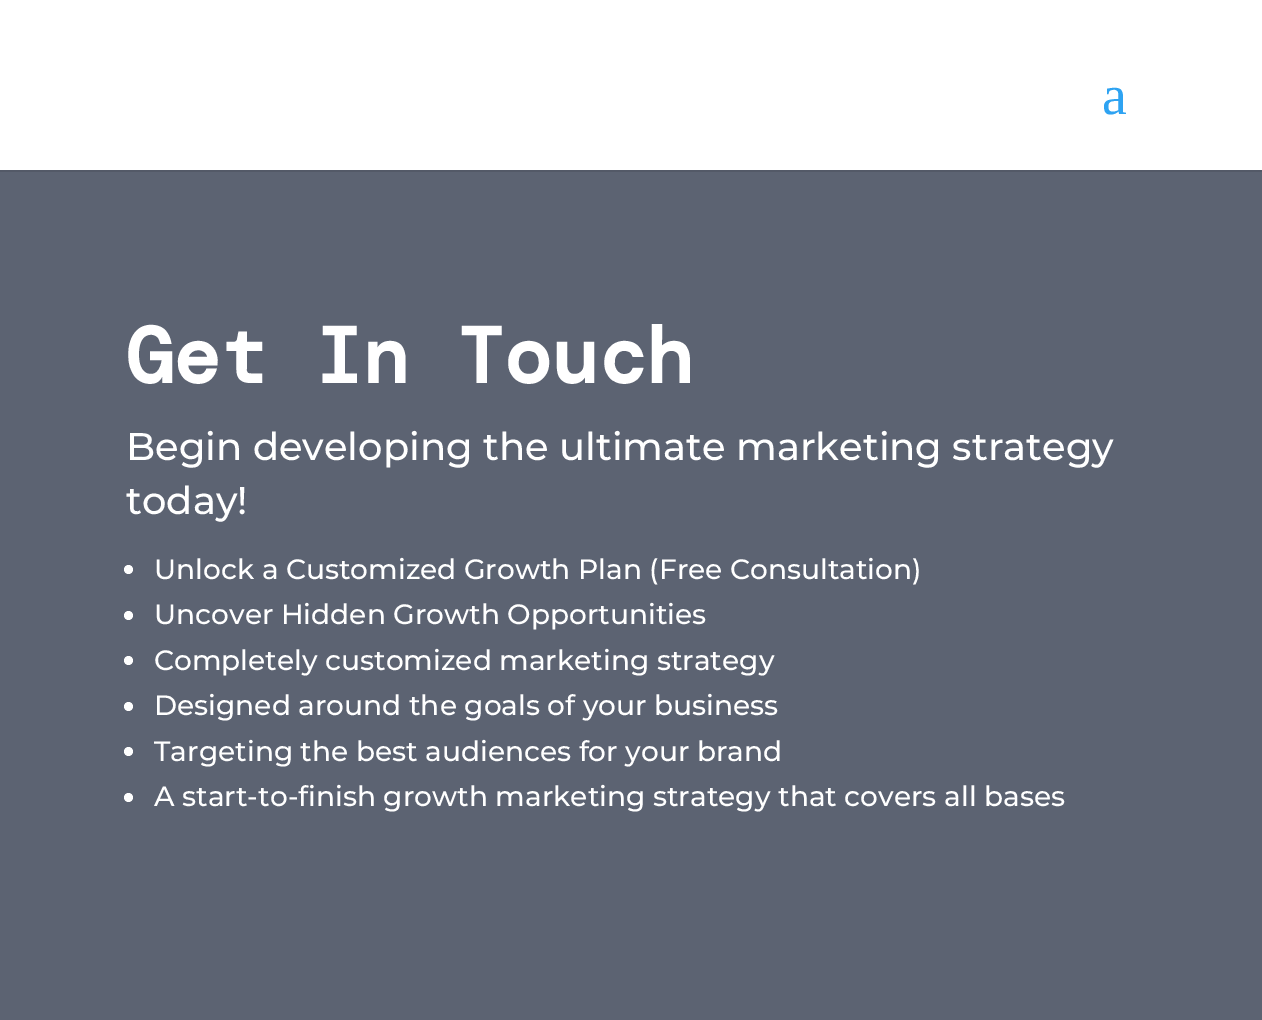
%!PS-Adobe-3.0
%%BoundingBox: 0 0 1262 1020
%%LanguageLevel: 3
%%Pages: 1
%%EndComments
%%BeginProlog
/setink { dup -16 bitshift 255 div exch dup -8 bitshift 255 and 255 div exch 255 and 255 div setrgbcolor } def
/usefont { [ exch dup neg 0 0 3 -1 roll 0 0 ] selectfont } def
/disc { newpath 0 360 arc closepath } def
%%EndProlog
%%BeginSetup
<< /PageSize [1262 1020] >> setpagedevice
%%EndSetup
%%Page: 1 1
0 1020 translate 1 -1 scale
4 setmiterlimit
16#FFFFFF setink
0 0 1262 1020 rectfill
16#535967 setink
0 170 moveto 0 172 lineto 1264 172 lineto 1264 2 lineto 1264 170 lineto closepath fill
/LiberationSerif-Regular 56 usefont
16#2EA3F2 setink
1102 114 moveto (a) show
16#5C6372 setink
0 172 1262 848 rectfill
/DMMono-Bold 78.75 usefont
16#FFFFFF setink
126 383 moveto (Get In Touch) show
/Montserrat-Thin 38.5 usefont
126 460 moveto (Begin developing the ultimate marketing strategy) show
126 514 moveto (today!) show
128.5 569.5 4.5 disc fill
/Montserrat-Thin 28 usefont
154 579 moveto (Unlock a Customized Growth Plan \(Free Consultation\)) show
128.5 615.5 4.5 disc fill
154 624 moveto (Uncover Hidden Growth Opportunities) show
128.5 660.5 4.5 disc fill
154 670 moveto (Completely customized marketing strategy) show
128.5 706.5 4.5 disc fill
154 715 moveto (Designed around the goals of your business) show
128.5 751.5 4.5 disc fill
154 761 moveto (Targeting the best audiences for your brand) show
128.5 797.5 4.5 disc fill
154 806 moveto (A start-to-finish growth marketing strategy that covers all bases) show
showpage
%%EOF
